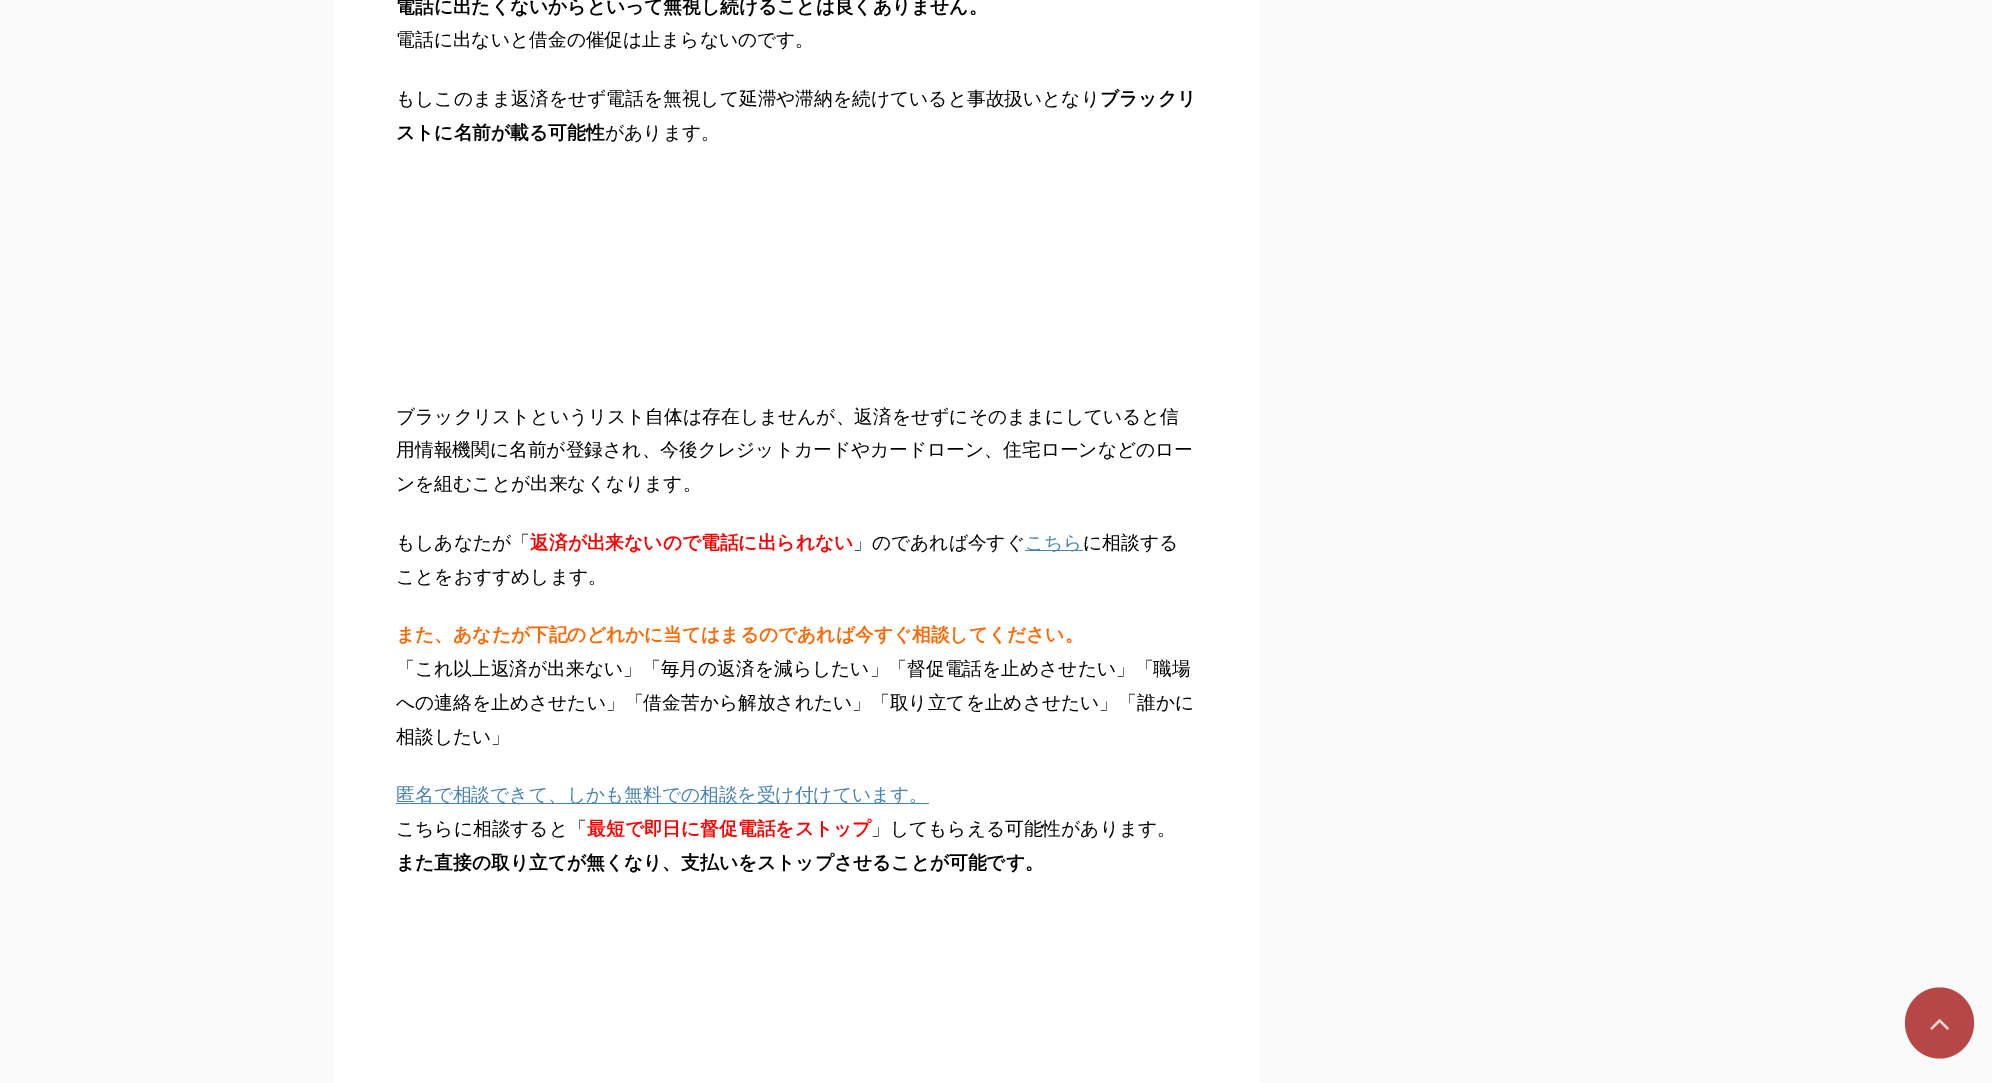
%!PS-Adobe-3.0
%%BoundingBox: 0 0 1992 1083
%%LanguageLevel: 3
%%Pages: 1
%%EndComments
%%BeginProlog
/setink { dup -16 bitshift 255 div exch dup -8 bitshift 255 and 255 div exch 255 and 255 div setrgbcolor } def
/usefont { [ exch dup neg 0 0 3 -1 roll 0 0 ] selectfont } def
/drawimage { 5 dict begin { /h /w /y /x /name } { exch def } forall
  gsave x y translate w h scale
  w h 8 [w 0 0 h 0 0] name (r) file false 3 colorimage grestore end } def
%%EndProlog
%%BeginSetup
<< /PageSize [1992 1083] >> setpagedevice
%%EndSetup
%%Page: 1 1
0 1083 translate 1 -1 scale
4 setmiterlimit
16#FAFAFA setink
0 0 1992 1083 rectfill
16#FFFFFF setink
334 0 925 1083 rectfill
/WenQuanYiZenHei-Bold 18.75 usefont
16#000000 setink
396 13 moveto (電話に出たくないからといって無視し続けることは良くありません。) show
/WenQuanYiZenHei-Medium 18.75 usefont
396 46 moveto (電話に出ないと借金の催促は止まらないのです。) show
396 105 moveto (もしこのまま返済をせず電話を無視して延滞や滞納を続けていると事故扱いとなり) show
/WenQuanYiZenHei-Bold 18.75 usefont
1100 105 moveto (ブラックリ) show
396 139 moveto (ストに名前が載る可能性) show
/WenQuanYiZenHei-Medium 18.75 usefont
[
    [(があります。) 605 139]
    [(ブラックリストというリスト自体は存在しませんが、返済をせずにそのままにしていると信) 396 423]
    [(用情報機関に名前が登録され、今後クレジットカードやカードローン、住宅ローンなどのロー) 396 456]
    [(ンを組むことが出来なくなります。) 396 490]
    [(もしあなたが「) 396 549]
] { aload pop moveto show } forall
/WenQuanYiZenHei-Bold 18.75 usefont
16#FF0000 setink
530 549 moveto (返済が出来ないので電話に出られない) show
/WenQuanYiZenHei-Medium 18.75 usefont
16#000000 setink
853 549 moveto (」のであれば今すぐ) show
16#4682B4 setink
1025 550 58 1 rectfill
1025 549 moveto (こちら) show
16#000000 setink
1083 549 moveto (に相談する) show
396 583 moveto (ことをおすすめします。) show
/WenQuanYiZenHei-Bold 18.75 usefont
16#FF6600 setink
396 641 moveto (また、あなたが下記のどれかに当てはまるのであれば今すぐ相談してください。) show
/WenQuanYiZenHei-Medium 18.75 usefont
16#000000 setink
[
    [(「これ以上返済が出来ない」「毎月の返済を減らしたい」「督促電話を止めさせたい」「職場) 396 675]
    [(への連絡を止めさせたい」「借金苦から解放されたい」「取り立てを止めさせたい」「誰かに) 396 709]
    [(相談したい」) 396 743]
] { aload pop moveto show } forall
16#4682B4 setink
396 803 533 1 rectfill
396 801 moveto (匿名で相談できて、しかも無料での相談を受け付けています。) show
16#000000 setink
396 835 moveto (こちらに相談すると「) show
/WenQuanYiZenHei-Bold 18.75 usefont
16#FF0000 setink
587 835 moveto (最短で即日に督促電話をストップ) show
/WenQuanYiZenHei-Medium 18.75 usefont
16#000000 setink
871 835 moveto (」してもらえる可能性があります。) show
/WenQuanYiZenHei-Bold 18.75 usefont
396 869 moveto (また直接の取り立てが無くなり、支払いをストップさせることが可能です。) show
16#B74646 setink
1939.5 987.5 moveto 1958.5 987.5 1974 1003.5 1974 1023 curveto 1974 1042.5 1958.5 1058.5 1939.5 1058.5 curveto 1920.5 1058.5 1905 1042.5 1905 1023 curveto 1905 1003.5 1920.5 987.5 1939.5 987.5 curveto closepath fill
(img1.raw) 1930 1019 19 11 drawimage
showpage
%%EOF
